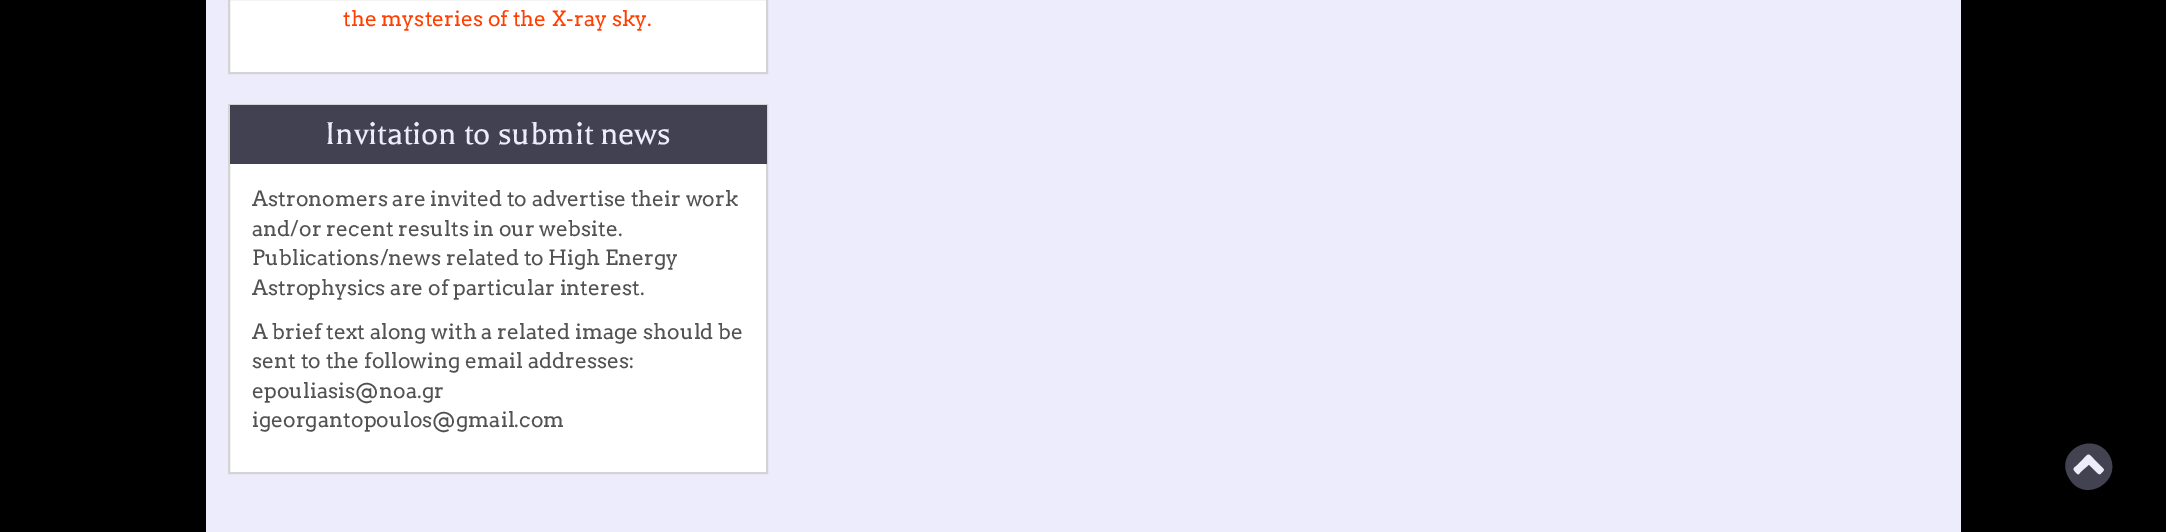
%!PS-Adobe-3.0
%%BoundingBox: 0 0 2166 532
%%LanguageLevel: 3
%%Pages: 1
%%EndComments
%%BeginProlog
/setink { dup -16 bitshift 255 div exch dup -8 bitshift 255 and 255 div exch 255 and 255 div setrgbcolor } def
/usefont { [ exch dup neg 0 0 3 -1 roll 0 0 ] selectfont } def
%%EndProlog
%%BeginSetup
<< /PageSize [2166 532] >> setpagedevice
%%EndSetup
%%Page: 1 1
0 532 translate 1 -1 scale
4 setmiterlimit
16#000000 setink
0 0 2166 532 rectfill
16#EDECFC setink
206 0 1755 532 rectfill
16#FFFFFF setink
229 -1 moveto 767 -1 lineto 767 73 lineto 229 73 lineto closepath gsave fill grestore
16#D4D4D4 setink
2 setlinewidth
stroke
/Arvo-Regular 21 usefont
16#FF3F00 setink
343 26 moveto (the mysteries of the X-ray sky.) show
16#FFFFFF setink
230 164 536 308 rectfill
16#D4D4D4 setink
229 105 538 368 rectstroke
16#414151 setink
230 105 537 59 rectfill
/Balthazar-Regular 36 usefont
16#ECECFB setink
325 144 moveto (Invitation to submit news) show
/Arvo-Regular 21 usefont
16#525252 setink
[
    [(Astronomers are invited to advertise their work) 252 206]
    [(and/or recent results in our website.) 252 236]
    [(Publications/news related to High Energy) 252 265]
    [(Astrophysics are of particular interest.) 252 295]
    [(A brief text along with a related image should be) 252 339]
    [(sent to the following email addresses:) 252 368]
    [(epouliasis@noa.gr) 252 398]
    [(igeorgantopoulos@gmail.com) 252 427]
] { aload pop moveto show } forall
16#ECECFB setink
2073 454 32 21 rectfill
16#434250 setink
2101 474 moveto 2106 469 2105 470 2099 464 curveto 2086 451 2091 451 2078 464 curveto 2075 467 2071 468 2075 472 curveto 2078 475 2078 476 2081 472 curveto 2089 465 lineto 2095 471 lineto 2096 472 2099 476 2101 474 curveto closepath 2109 455 moveto 2124 481 2084 505 2069 478 curveto 2053 452 2093 429 2109 455 curveto closepath fill
showpage
%%EOF
